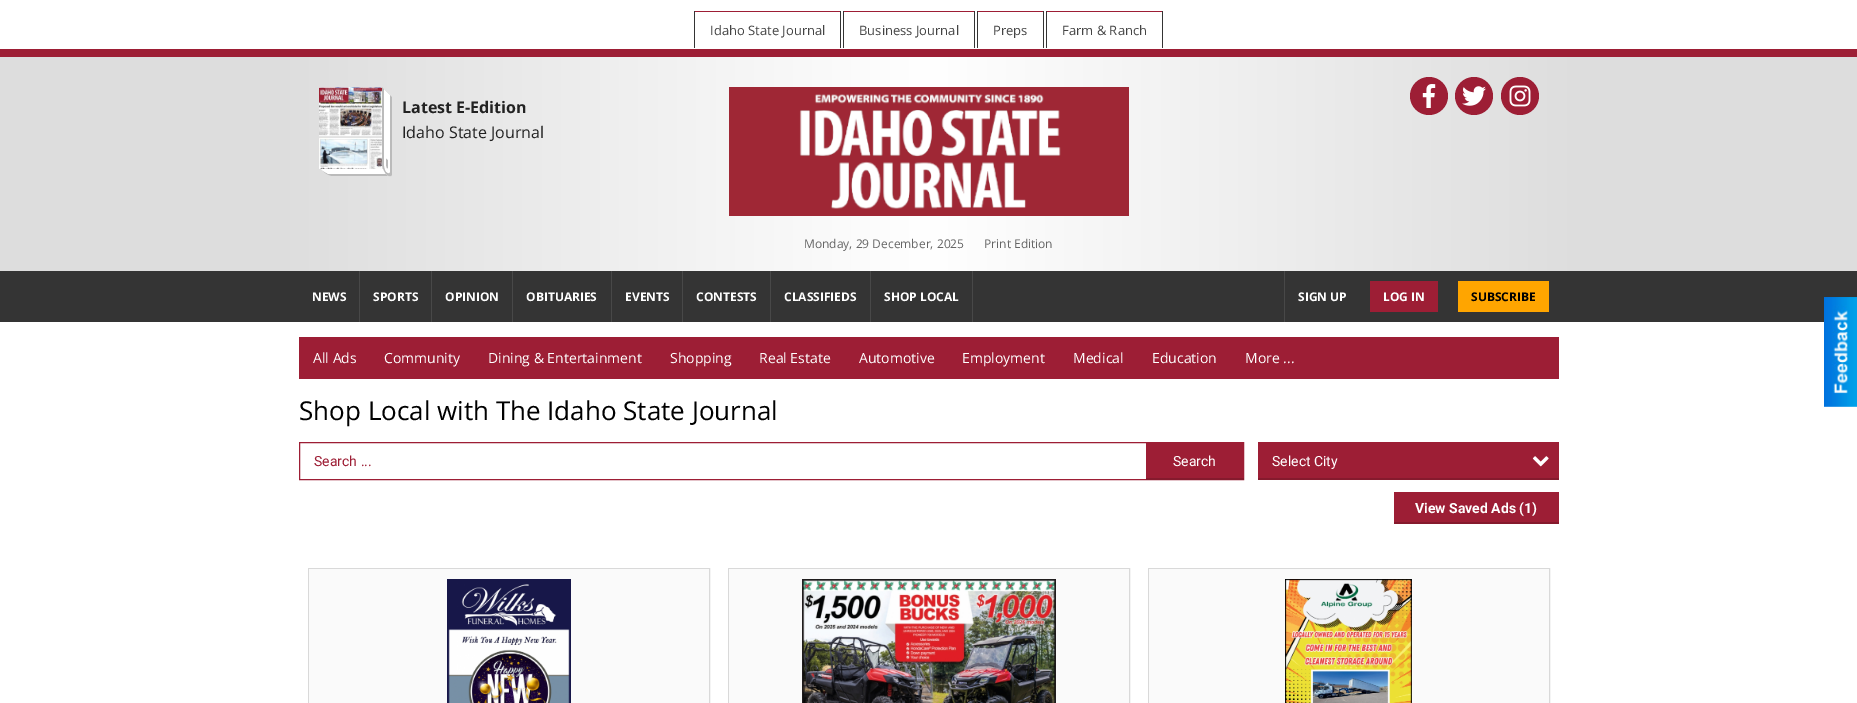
%!PS-Adobe-3.0
%%BoundingBox: 0 0 1857 703
%%LanguageLevel: 3
%%Pages: 1
%%EndComments
%%BeginProlog
/setink { dup -16 bitshift 255 div exch dup -8 bitshift 255 and 255 div exch 255 and 255 div setrgbcolor } def
/usefont { [ exch dup neg 0 0 3 -1 roll 0 0 ] selectfont } def
/disc { newpath 0 360 arc closepath } def
/drawimage { 5 dict begin { /h /w /y /x /name } { exch def } forall
  gsave x y translate w h scale
  w h 8 [w 0 0 h 0 0] name (r) file false 3 colorimage grestore end } def
%%EndProlog
%%BeginSetup
<< /PageSize [1857 703] >> setpagedevice
%%EndSetup
%%Page: 1 1
0 703 translate 1 -1 scale
4 setmiterlimit
16#FFFFFF setink
0 0 1857 703 rectfill
[
    [694 11 147 1 16#9D1E35]
    [840 11 1 37 16#343434]
    [694 11 1 37 16#343434]
] { aload pop setink rectfill } forall
/OpenSans-Regular 13 usefont
16#444444 setink
710 35 moveto (Idaho State Journal) show
[
    [843 11 132 1 16#9D1E35]
    [974 11 1 37 16#343434]
    [843 11 1 37 16#343434]
] { aload pop setink rectfill } forall
16#444444 setink
859 35 moveto (Business Journal) show
[
    [977 11 67 1 16#9D1E35]
    [1043 11 1 37 16#343434]
    [977 11 1 37 16#343434]
] { aload pop setink rectfill } forall
16#444444 setink
993 35 moveto (Preps) show
[
    [1046 11 117 1 16#9D1E35]
    [1162 11 1 37 16#343434]
    [1046 11 1 37 16#343434]
] { aload pop setink rectfill } forall
16#444444 setink
1062 35 moveto (Farm & Ranch) show
gsave 0 57 moveto 1857 57 lineto 1857 271 lineto 0 271 lineto closepath clip newpath
<< /ShadingType 2 /ColorSpace /DeviceRGB /Coords [0 164 1857 164] /Extend [true true] /Function << /FunctionType 3 /Domain [0 1] /Functions [<< /FunctionType 2 /Domain [0 1] /C0 [0.867 0.867 0.867] /C1 [0.867 0.867 0.867] /N 1 >> << /FunctionType 2 /Domain [0 1] /C0 [0.867 0.867 0.867] /C1 [1 1 1] /N 1 >> << /FunctionType 2 /Domain [0 1] /C0 [1 1 1] /C1 [0.867 0.867 0.867] /N 1 >> << /FunctionType 2 /Domain [0 1] /C0 [0.867 0.867 0.867] /C1 [0.867 0.867 0.867] /N 1 >>] /Bounds [0.15 0.5 0.85] /Encode [0 1 0 1 0 1 0 1] >> >> shfill grestore
16#9D1E35 setink
0 49 1857 8 rectfill
1429 96 19 disc fill
(img1.raw) 1422 84 14 24 drawimage
1474 96 19 disc fill
(img2.raw) 1462 86 24 20 drawimage
1520 96 19 disc fill
(img3.raw) 1509 85 22 22 drawimage
(img4.raw) 319 87 63 82 drawimage
16#BBBBBB setink
323 171 moveto 326 174 330 176 333 176 curveto 391 176 lineto 386 171 lineto 389 174 lineto 331 174 lineto 329 174 326 173 323 171 curveto closepath fill
16#FFFFFF setink
321 169 moveto 384 169 lineto 389 174 lineto 331 174 lineto 328 174 324 172 321 169 curveto closepath fill
324 169 moveto 384 169 lineto 389 174 lineto 328 174 lineto closepath fill
382 87 moveto 392 97 lineto 392 174 lineto 392 177 389 177 386 174 curveto 384 171 382 167 382 164 curveto closepath fill
16#BBBBBB setink
384 89 moveto 384 90 lineto 384 157 lineto 390 162 lineto 390 165 391 178 386 172 curveto 385 170 384 168 384 166 curveto closepath fill
16#FFFFFF setink
384 89 moveto 384 166 lineto 384 168 385 171 386 172 curveto 388 174 390 174 390 172 curveto 390 95 lineto 388 94 lineto 388 168 lineto 387 170 386 167 386 166 curveto 386 92 lineto closepath fill
16#BBBBBB setink
382 87 moveto 392 97 lineto 392 174 lineto 392 177 389 177 386 174 curveto 384 171 382 167 382 164 curveto closepath 384 89 moveto 390 95 lineto 390 172 lineto 390 174 388 174 386 172 curveto 385 171 384 168 384 166 curveto closepath eofill
/OpenSans-Bold 16 usefont
16#222222 setink
402 113 moveto (Latest E-Edition) show
/OpenSans-Regular 16 usefont
402 138 moveto (Idaho State Journal) show
(img5.raw) 729 87 400 129 drawimage
/OpenSans-Regular 12 usefont
16#666666 setink
804 248 moveto (Monday, 29 December, 2025) show
984 248 moveto (Print Edition) show
16#343434 setink
0 271 1857 51 rectfill
16#484848 setink
359 271 1 51 rectfill
/OpenSans-Bold 12 usefont
16#FFFFFF setink
312 301 moveto (NEWS) show
16#484848 setink
431 271 1 51 rectfill
16#FFFFFF setink
373 301 moveto (SPORTS) show
16#484848 setink
512 271 1 51 rectfill
16#FFFFFF setink
445 301 moveto (OPINION) show
16#484848 setink
611 271 1 51 rectfill
16#FFFFFF setink
526 301 moveto (OBITUARIES) show
16#484848 setink
682 271 1 51 rectfill
16#FFFFFF setink
625 301 moveto (EVENTS) show
16#484848 setink
770 271 1 51 rectfill
16#FFFFFF setink
696 301 moveto (CONTESTS) show
16#484848 setink
870 271 1 51 rectfill
16#FFFFFF setink
784 301 moveto (CLASSIFIEDS) show
16#484848 setink
972 271 1 51 rectfill
16#FFFFFF setink
884 301 moveto (SHOP LOCAL) show
16#484848 setink
1284 271 1 51 rectfill
16#FFFFFF setink
1298 301 moveto (SIGN UP) show
16#9D1E35 setink
1370 281 68 31 rectfill
16#FFFFFF setink
1383 301 moveto (LOG IN) show
16#FFA500 setink
1458 281 91 31 rectfill
16#000000 setink
1471 301 moveto (SUBSCRIBE) show
16#9D1E35 setink
299 337 1260 42 rectfill
/OpenSans-Regular 14 usefont
16#FFFFFF setink
[
    [(All Ads) 313 363]
    [(Community) 384 363]
    [(Dining & Entertainment) 488 363]
    [(Shopping) 670 363]
    [(Real Estate) 759 363]
    [(Automotive) 859 363]
    [(Employment) 962 363]
    [(Medical) 1073 363]
    [(Education) 1152 363]
    [(More ...) 1245 363]
] { aload pop moveto show } forall
/OpenSans-Regular 26 usefont
16#000000 setink
299 420 moveto (Shop Local with The Idaho State Journal) show
16#9D1E35 setink
299.5 442.5 944 37 rectstroke
/Roboto-Regular 14 usefont
314 466 moveto (Search ...) show
1146 443 97 35 rectfill
16#851A2D setink
1146 478 98 2 rectfill
16#FFFFFF setink
1173 466 moveto (Search) show
16#9D1E35 setink
1258 442 301 36 rectfill
16#851A2D setink
1258 478 301 2 rectfill
16#FFFFFF setink
1272 466 moveto (Select City) show
(img6.raw) 1532 456 17 11 drawimage
16#9D1E35 setink
1394 492 165 30 rectfill
16#851A2D setink
1394 522 165 2 rectfill
/Roboto-Bold 14 usefont
16#FFFFFF setink
1415 513 moveto (View Saved Ads \(1\)) show
16#D9D9D9 setink
308.5 568.5 401 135 rectstroke
16#FAFAFA setink
309 569 400 134 rectfill
(img7.raw) 447 579 124 124 drawimage
16#D9D9D9 setink
728.5 568.5 401 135 rectstroke
16#FAFAFA setink
729 569 400 134 rectfill
(img8.raw) 802 579 254 124 drawimage
16#D9D9D9 setink
1148.5 568.5 401 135 rectstroke
16#FAFAFA setink
1149 569 400 134 rectfill
(img9.raw) 1285 579 127 124 drawimage
(img10.raw) 1824 297 33 110 drawimage
showpage
%%EOF
